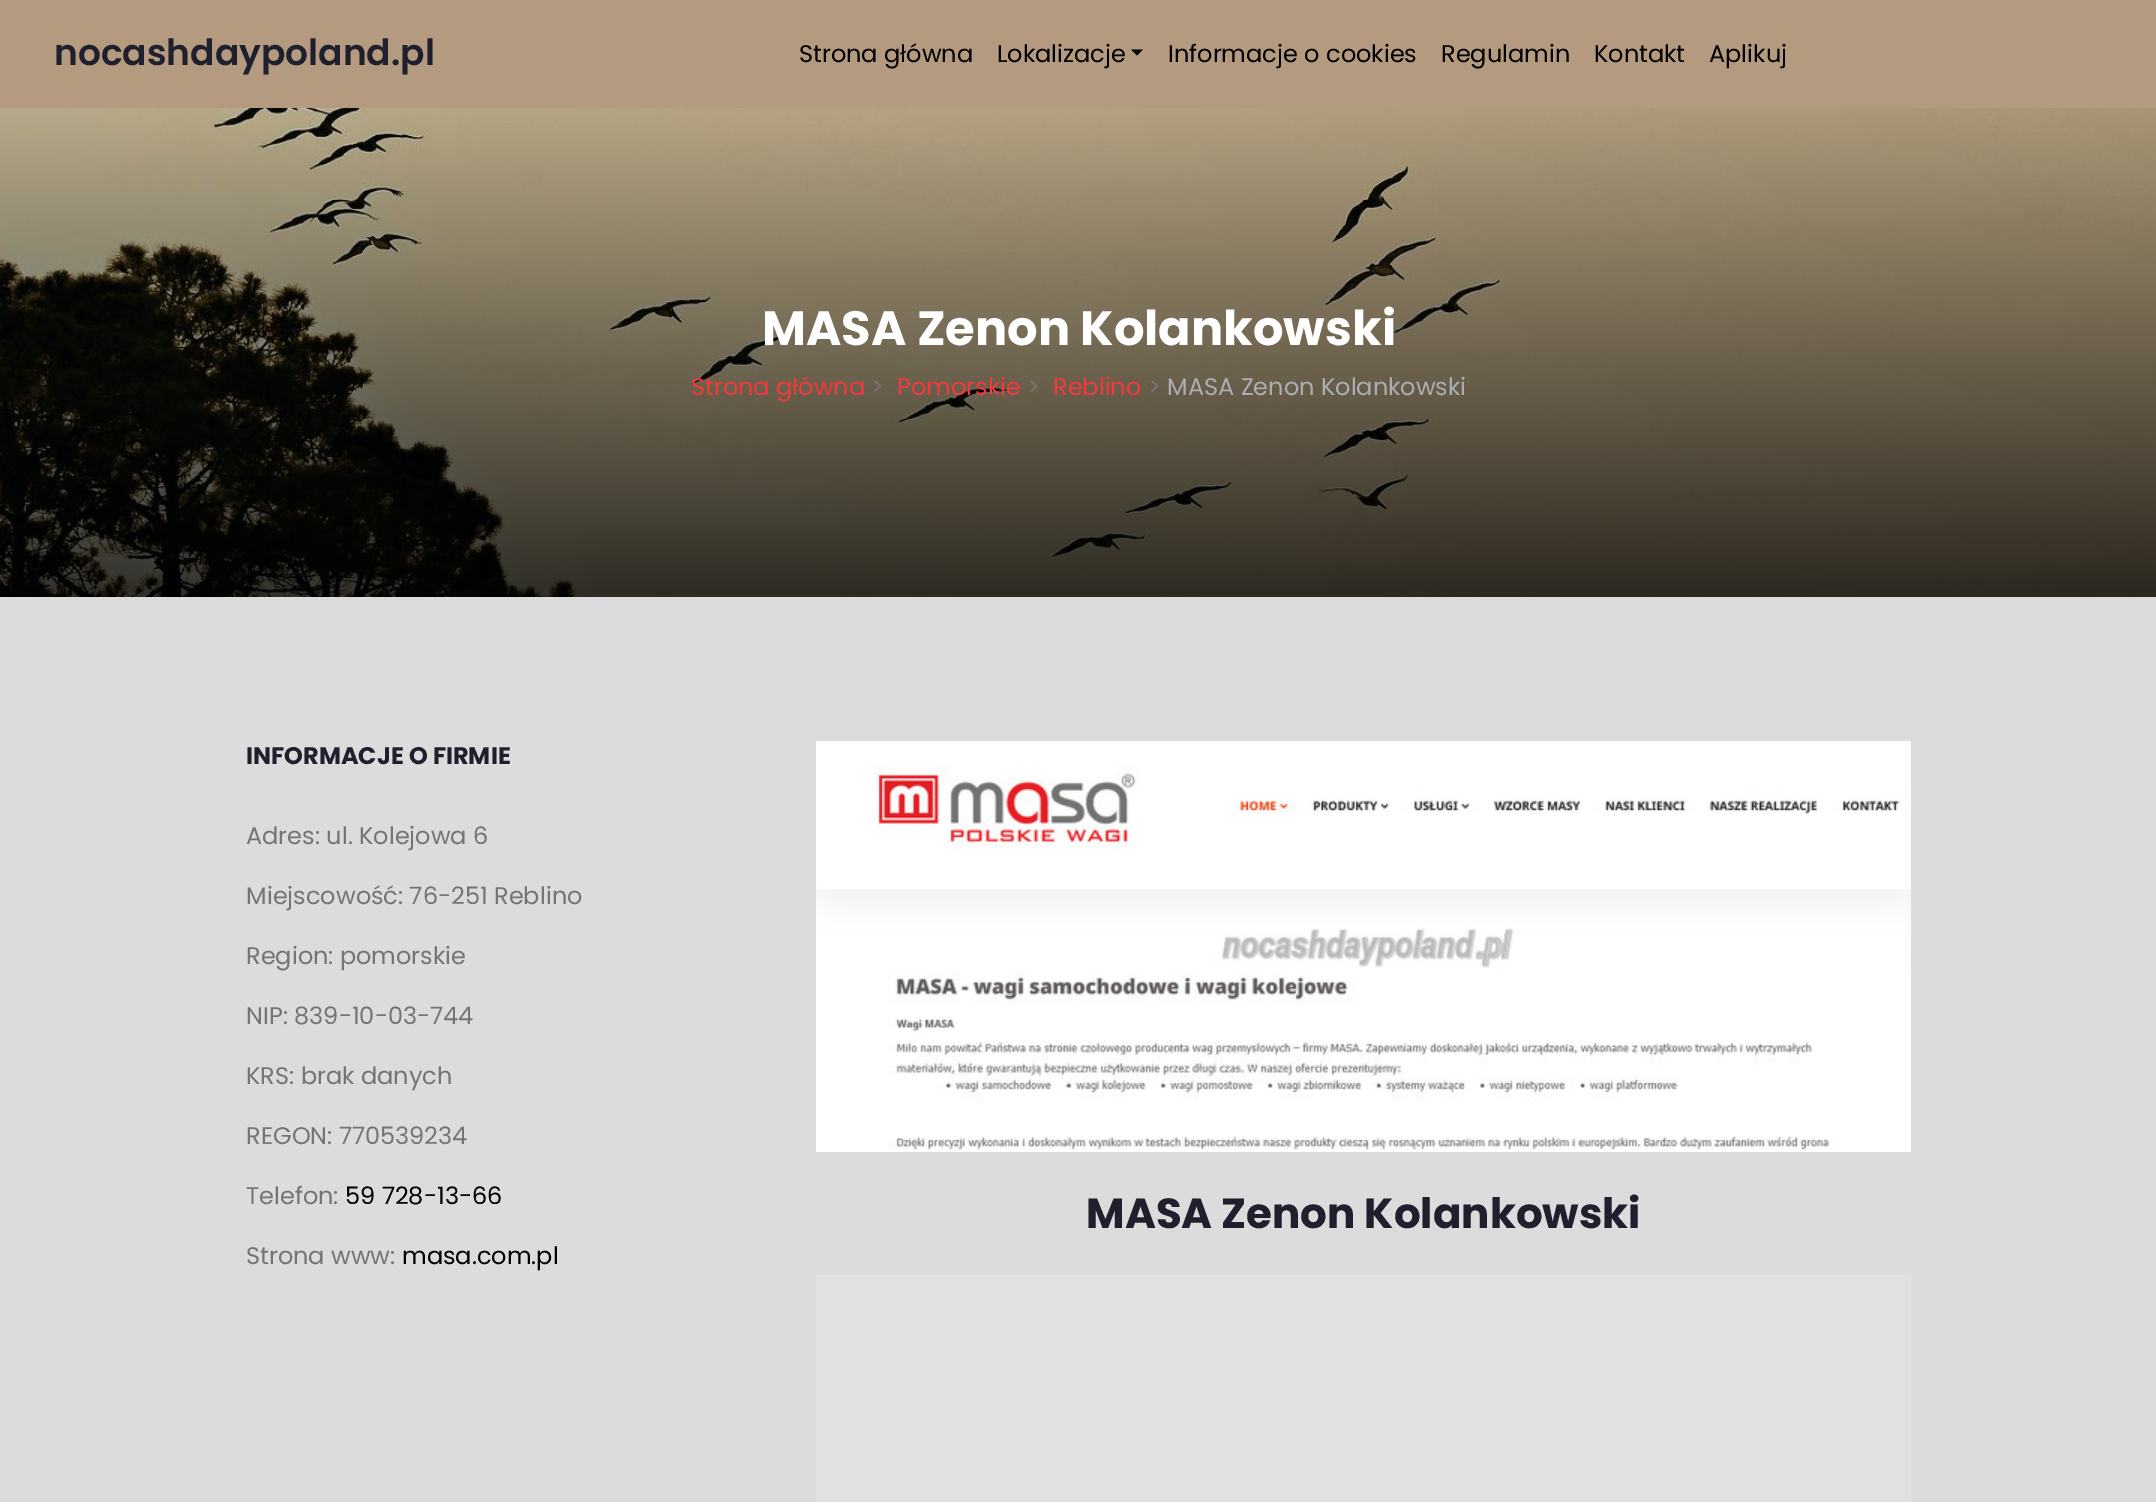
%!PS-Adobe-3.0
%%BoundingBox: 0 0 2156 1502
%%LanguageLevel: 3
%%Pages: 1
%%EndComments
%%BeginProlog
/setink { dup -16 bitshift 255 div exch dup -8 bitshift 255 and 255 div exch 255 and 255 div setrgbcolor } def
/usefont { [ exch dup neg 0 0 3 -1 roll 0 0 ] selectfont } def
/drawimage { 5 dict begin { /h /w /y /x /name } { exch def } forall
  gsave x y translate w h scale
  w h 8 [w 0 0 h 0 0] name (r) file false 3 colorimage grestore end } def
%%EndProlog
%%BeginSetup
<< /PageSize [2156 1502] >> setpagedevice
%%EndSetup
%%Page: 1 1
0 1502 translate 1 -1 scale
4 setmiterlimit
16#DCDCDC setink
0 0 2156 1502 rectfill
16#B49A7E setink
0 0 2156 108 rectfill
/Poppins-SemiBold 36 usefont
16#1F1F2E setink
54 65 moveto (nocashdaypoland.pl) show
/Poppins-Regular 24 usefont
16#000000 setink
799 62 moveto (Strona główna) show
997 62 moveto (Lokalizacje) show
1131 49.5 moveto 1143 49.5 lineto 1137 55.5 lineto closepath fill
[
    [(Informacje o cookies) 1168 62]
    [(Regulamin) 1441 62]
    [(Kontakt) 1594 62]
    [(Aplikuj) 1709 62]
] { aload pop moveto show } forall
(img1.raw) 0 108 2156 489 drawimage
/Poppins-Bold 48 usefont
16#FFFFFF setink
762 345 moveto (MASA Zenon Kolankowski) show
/Poppins-Regular 24 usefont
16#F33939 setink
691 395 moveto (Strona główna) show
16#757575 setink
871 395 moveto (>) show
16#F33939 setink
897 395 moveto (Pomorskie) show
16#757575 setink
1027 395 moveto (>) show
16#F33939 setink
1053 395 moveto (Reblino) show
16#757575 setink
1148 395 moveto (>) show
16#ABAEB0 setink
1167 395 moveto (MASA Zenon Kolankowski) show
/Poppins-Bold 24 usefont
16#1F1F2E setink
246 764 moveto (INFORMACJE O FIRMIE) show
/Poppins-Regular 24 usefont
16#757575 setink
[
    [(Adres: ul. Kolejowa 6) 246 844]
    [(Miejscowość: 76-251 Reblino) 246 904]
    [(Region: pomorskie) 246 964]
    [(NIP: 839-10-03-744) 246 1024]
    [(KRS: brak danych) 246 1084]
    [(REGON: 770539234) 246 1144]
    [(Telefon:) 246 1204]
] { aload pop moveto show } forall
16#000000 setink
345 1204 moveto (59 728-13-66) show
16#757575 setink
246 1264 moveto (Strona www:) show
16#000000 setink
402 1264 moveto (masa.com.pl) show
(img2.raw) 816 741 1095 411 drawimage
/Poppins-Bold 42 usefont
16#1F1F2E setink
1086 1228 moveto (MASA Zenon Kolankowski) show
16#E1E1E1 setink
816 1275 1095 227 rectfill
showpage
%%EOF
